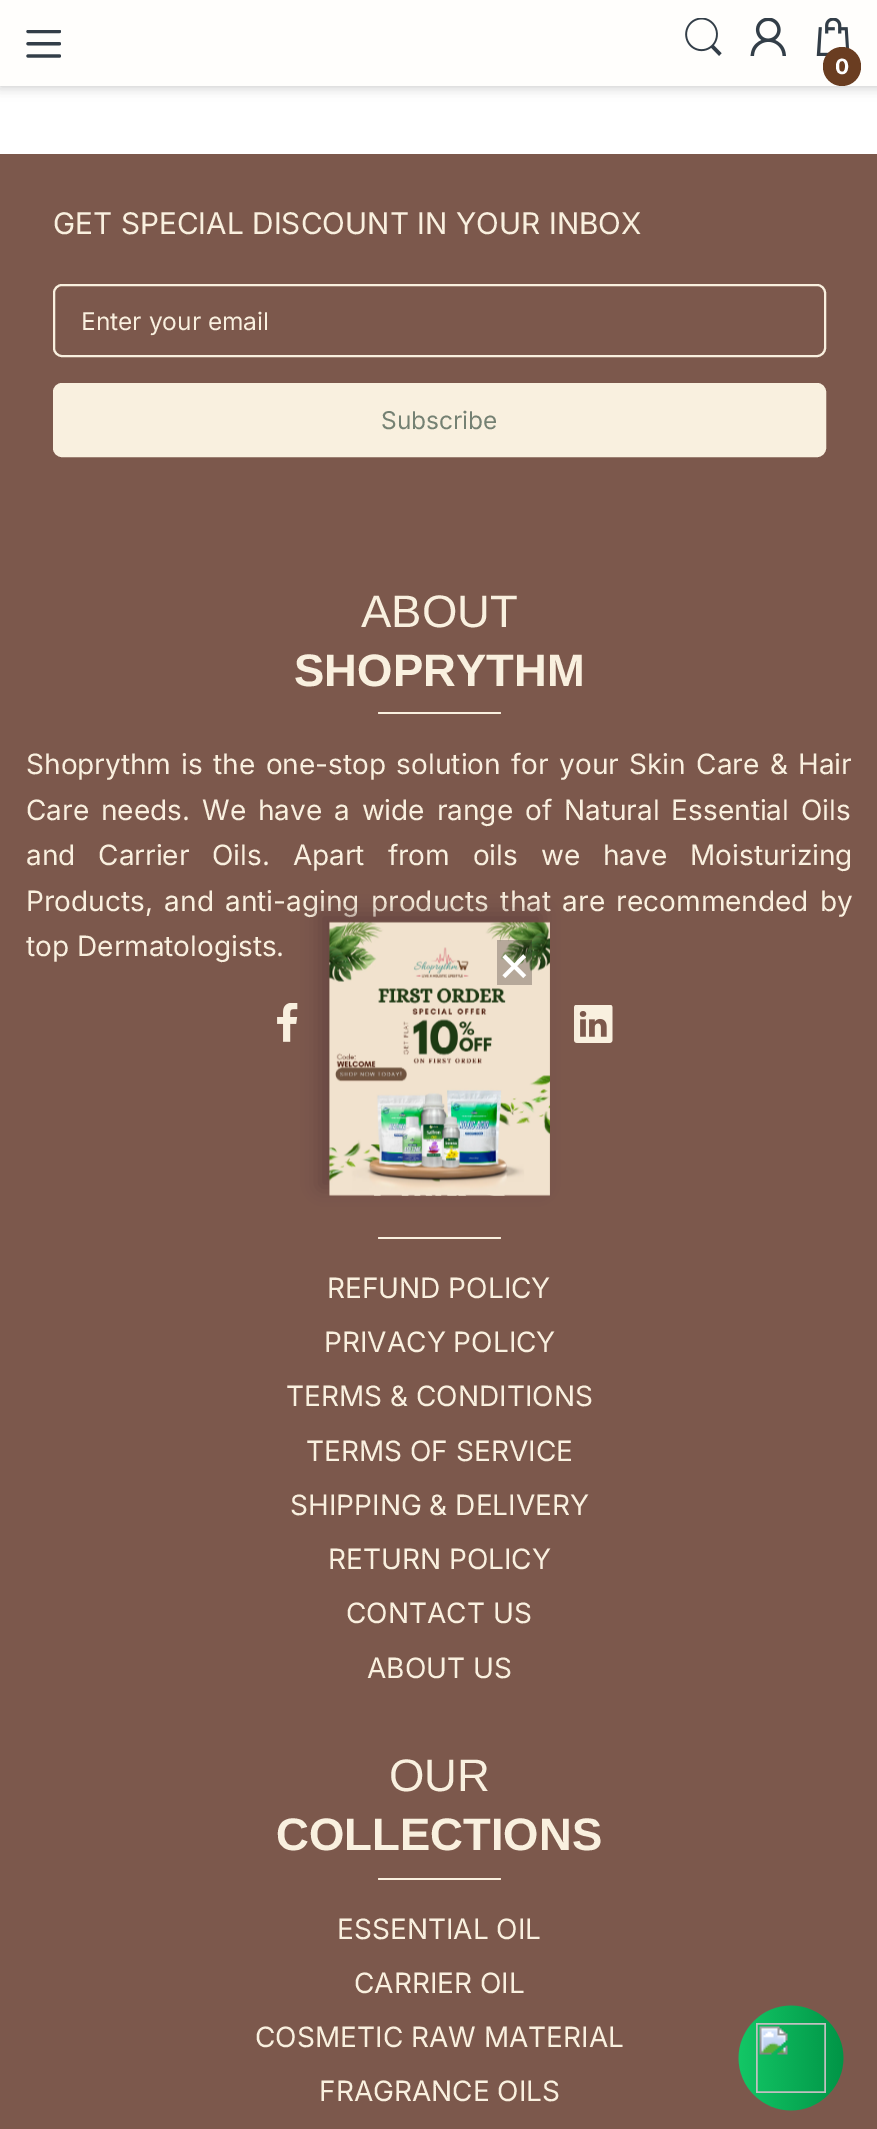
%!PS-Adobe-3.0
%%BoundingBox: 0 0 877 2129
%%LanguageLevel: 3
%%Pages: 1
%%EndComments
%%BeginProlog
/setink { dup -16 bitshift 255 div exch dup -8 bitshift 255 and 255 div exch 255 and 255 div setrgbcolor } def
/usefont { [ exch dup neg 0 0 3 -1 roll 0 0 ] selectfont } def
/setalpha { dup .setfillconstantalpha .setstrokeconstantalpha } def
/rrect { 5 dict begin { /r /h /w /y /x } { exch def } forall
  x r add y moveto x w add y 2 copy h add r arct x w add y h add x 1 index r arct
  x y h add x y r arct x y 2 copy exch w add exch r arct closepath end } def
/softshadow { 12 dict begin { /a /b /q /h /w /y /x } { exch def } forall gsave /was 0 def
  9 -2 -9 { dup b mul 4 div /e exch def 1 sub .425 mul 2.718 exch exp 1 add a .99 .min exch div /now exch def
    1 1 now sub 1 was sub div sub setalpha /was now def
    w h .min e 2 mul add 0 gt { x e sub y e sub w e 2 mul add h e 2 mul add
      q e add b .6 mul add w h .min 2 div e add .min 0 .max rrect fill } if } for grestore end } def
/drawimage { 5 dict begin { /h /w /y /x /name } { exch def } forall
  gsave x y translate w h scale
  w h 8 [w 0 0 h 0 0] name (r) file false 3 colorimage grestore end } def
%%EndProlog
%%BeginSetup
<< /PageSize [877 2129] /PageUsesTransparency true >> setpagedevice
%%EndSetup
%%Page: 1 1
0 .pushpdf14devicefilter
0 2129 translate 1 -1 scale
4 setmiterlimit
16#FFFFFF setink
0 0 877 2129 rectfill
16#202124 setink
0 0 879 86 0 5 0.15 softshadow
16#C9C9C9 setink
0 0 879 86 0 7 0.75 softshadow
16#FFFEFC setink
0 0 877 86 rectfill
(img1.raw) 26 30 35 28 drawimage
(img2.raw) 685 18 37 38 drawimage
(img3.raw) 750 18 36 38 drawimage
(img4.raw) 816 18 34 38 drawimage
16#6A3D21 setink
823 47 38 39 19 rrect fill
/Inter-Bold 21 usefont
16#FFFFFF setink
835 74 moveto (0) show
16#7C584C setink
0 154 877 1975 rectfill
/Inter-Regular 29.75 usefont
16#F9F0DF setink
53 234 moveto (GET SPECIAL DISCOUNT IN YOUR INBOX) show
2 setlinewidth
54 285 771 71 8 rrect stroke
/Inter-Regular 24.5 usefont
81 330 moveto (Enter your email) show
54 384 771 72 8 rrect gsave fill grestore
stroke
16#758173 setink
381 429 moveto (Subscribe) show
/LiberationSans-Regular 45.5 usefont
16#F9F0DF setink
361 627 moveto (ABOUT) show
/LiberationSans-Bold 45.5 usefont
294 686 moveto (SHOPRYTHM) show
378 712 123 2 1 rrect fill
/Inter-Regular 28 usefont
26 774 moveto 2.5 0 32 (Shoprythm is the one-stop solution for your Skin Care & Hair) widthshow
26 820 moveto 4 0 32 (Care needs. We have a wide range of Natural Essential Oils) widthshow
26 865 moveto 15 0 32 (and Carrier Oils. Apart from oils we have Moisturizing) widthshow
26 911 moveto 3.5 0 32 (Products, and anti-aging products that are recommended by) widthshow
26 956 moveto (top Dermatologists.) show
(img5.raw) 277 1003 21 39 drawimage
(img6.raw) 574 1005 39 38 drawimage
378 1237 123 2 1 rrect fill
[
    [(REFUND POLICY) 327 1298]
    [(PRIVACY POLICY) 324 1352]
    [(TERMS & CONDITIONS) 286 1406]
    [(TERMS OF SERVICE) 306 1461]
    [(SHIPPING & DELIVERY) 290 1515]
    [(RETURN POLICY) 328 1569]
    [(CONTACT US) 346 1623]
    [(ABOUT US) 367 1678]
] { aload pop moveto show } forall
/LiberationSans-Regular 45.5 usefont
389 1791 moveto (OUR) show
/LiberationSans-Bold 45.5 usefont
276 1850 moveto (COLLECTIONS) show
378 1878 123 2 1 rrect fill
/Inter-Regular 28 usefont
[
    [(ESSENTIAL OIL) 337 1939]
    [(CARRIER OIL) 354 1993]
    [(COSMETIC RAW MATERIAL) 255 2047]
    [(FRAGRANCE OILS) 319 2101]
] { aload pop moveto show } forall
16#5A3A3A setink
320 914 221 273 0 9 0.59 softshadow
16#7C584C setink
338 931 220 273 0 9 0.64 softshadow
(img7.raw) 329 921 221 275 drawimage
0.3 setalpha
16#2C2323 setink
497 940 35 45 rectfill
/Inter-Regular 52 usefont
1 setalpha
16#FFFFFF setink
497 981 moveto (×) show
(img8.raw) 738 2005 106 106 drawimage
.poppdf14devicefilter showpage
%%EOF
